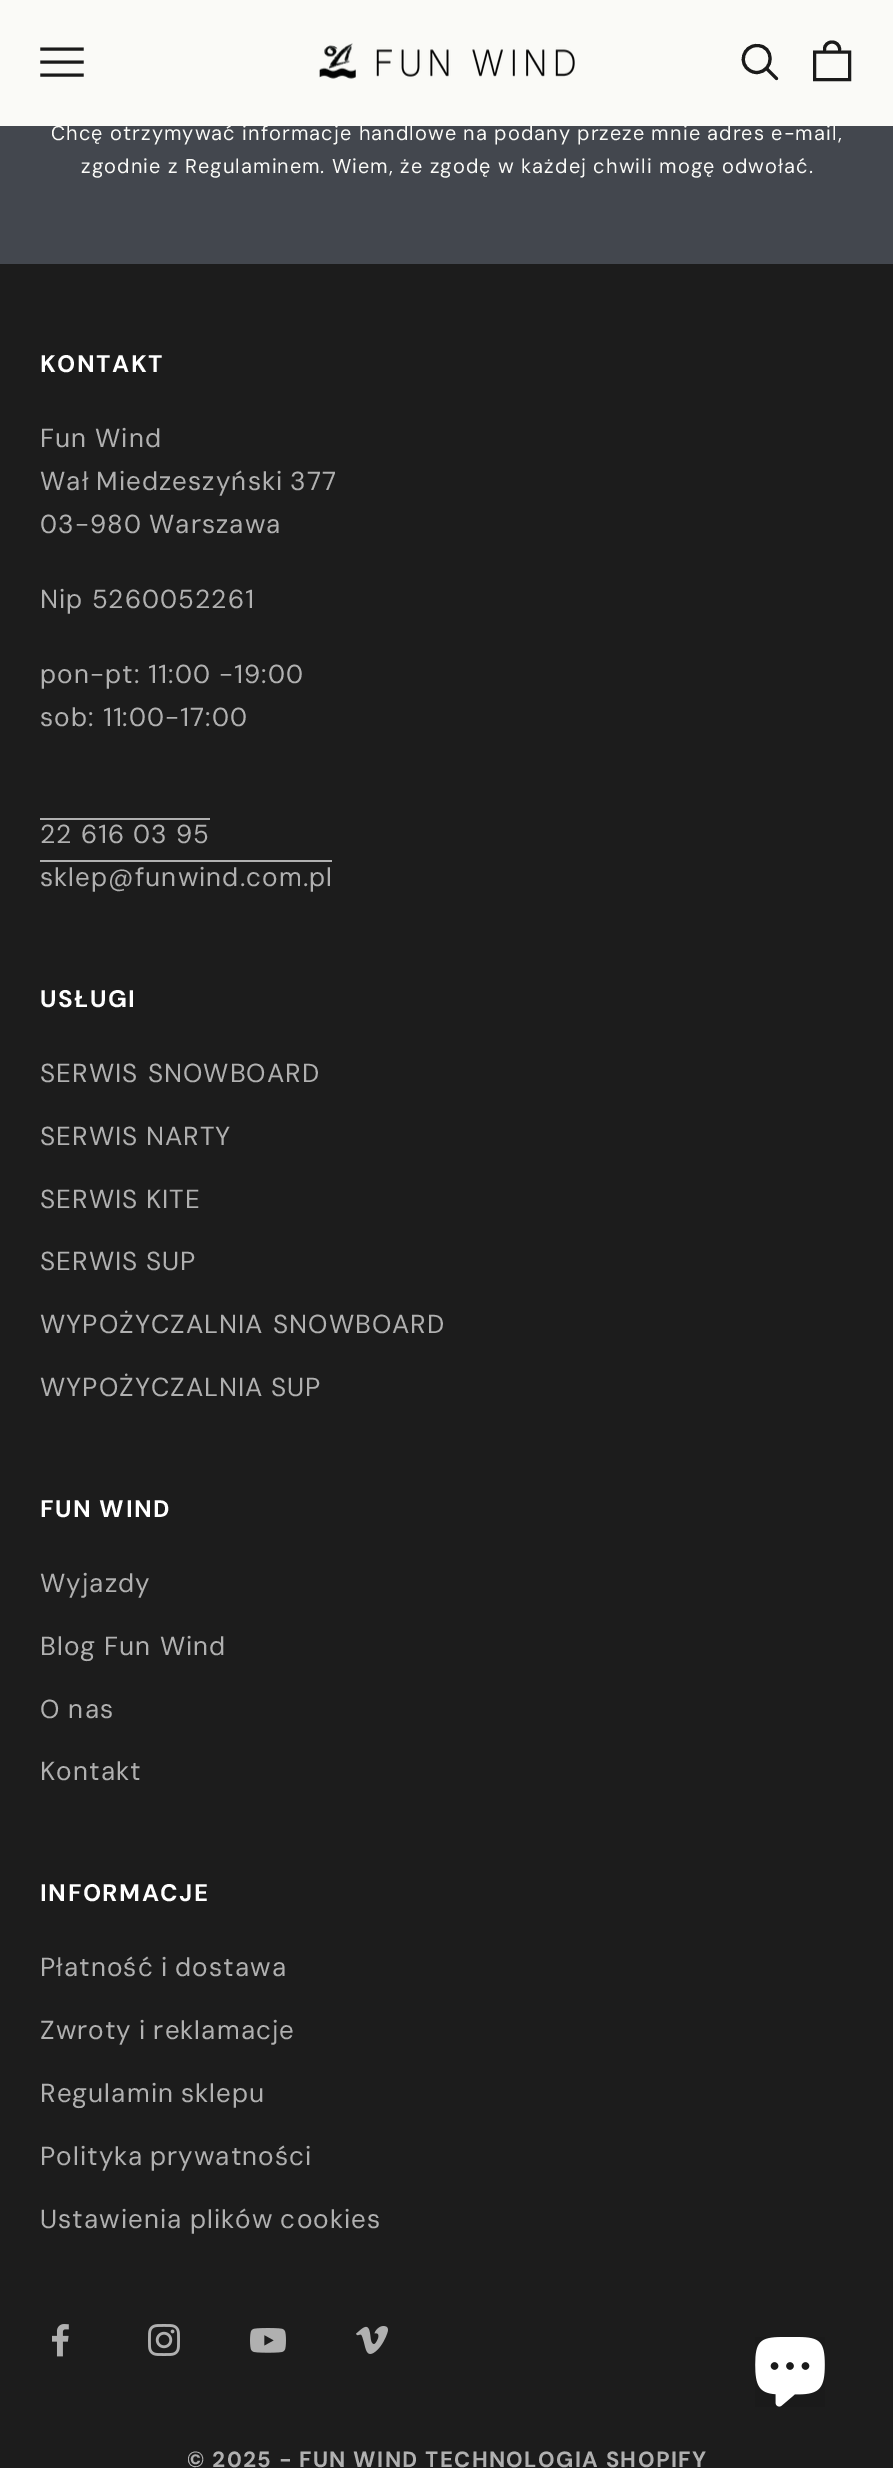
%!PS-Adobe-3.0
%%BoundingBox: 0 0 893 2468
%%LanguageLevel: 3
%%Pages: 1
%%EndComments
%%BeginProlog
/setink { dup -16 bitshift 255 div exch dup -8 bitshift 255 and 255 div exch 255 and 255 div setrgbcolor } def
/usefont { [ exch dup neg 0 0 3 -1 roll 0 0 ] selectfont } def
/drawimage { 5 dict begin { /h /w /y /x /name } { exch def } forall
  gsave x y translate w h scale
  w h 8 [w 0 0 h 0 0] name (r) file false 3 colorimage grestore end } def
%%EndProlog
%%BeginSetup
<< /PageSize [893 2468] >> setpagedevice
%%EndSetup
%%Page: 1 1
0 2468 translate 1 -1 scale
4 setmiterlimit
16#43474E setink
0 0 893 2468 rectfill
16#FAFAF7 setink
0 0 893 126 rectfill
16#1A1A1A setink
3.1 setlinewidth
2 setlinecap
42 75 moveto 82 75 lineto 42 62 moveto 82 62 lineto 42 49 moveto 82 49 lineto stroke
(img1.raw) 319 43 256 36 drawimage
0 setlinecap
757 45.5 moveto 743 45.5 738 64 750 70.5 curveto 752 72 754.5 72.5 757 72.5 curveto 774.5 71.5 774.5 45.5 757 45.5 curveto closepath stroke
1 setlinecap
767 69 moveto 776.5 78.5 lineto stroke
0 setlinecap
849.5 79.5 moveto 849.5 52 lineto 814.5 52 lineto 814.5 79.5 lineto closepath 824.5 51 moveto 824.5 49 lineto 824.5 45 828 42 832 42 curveto 836 42 839.5 45 839.5 49 curveto 839.5 51 lineto stroke
/DMSans-Regular 20 usefont
16#FAFAF7 setink
51 140 moveto -0.25 0 32 1.05 0 (Chcę otrzymywać informacje handlowe na podany przeze mnie adres e-mail,) awidthshow
81 173 moveto 1.05 0 (zgodnie z Regulaminem) ashow
320 173 moveto 1.05 0 (. Wiem, że zgodę w każdej chwili mogę odwołać.) ashow
16#1C1C1C setink
0 264 893 2204 rectfill
/DMSans-Bold 24 usefont
16#FFFFFF setink
40 372 moveto 1.5 0 (KONTAKT) ashow
/DMSans-Regular 26 usefont
16#B0B0B0 setink
40 447 moveto 1.05 0 (Fun Wind) ashow
40 490 moveto -1 0 32 1.05 0 (Wał Miedzeszyński 377) awidthshow
40 533 moveto -1 0 32 1.05 0 (03-980 Warszawa) awidthshow
40 608 moveto 1.05 0 (Nip 5260052261) ashow
40 683 moveto 1.05 0 (pon-pt: 11:00 -19:00) ashow
40 726 moveto 1.05 0 (sob: 11:00-17:00) ashow
40 843 moveto 1.05 0 (22 616 03 95) ashow
40 818 170 2 rectfill
40 886 moveto 1.05 0 (sklep@funwind.com.pl) ashow
40 860 292 2 rectfill
/DMSans-Bold 24 usefont
16#FFFFFF setink
40 1007 moveto 1.5 0 (USŁUGI) ashow
/DMSans-Regular 26 usefont
16#B0B0B0 setink
40 1082 moveto 1 0 32 1.05 0 (SERWIS SNOWBOARD) awidthshow
40 1145 moveto -1 0 32 1.05 0 (SERWIS NARTY) awidthshow
40 1208 moveto -1 0 32 1.05 0 (SERWIS KITE) awidthshow
40 1270 moveto -1 0 32 1.05 0 (SERWIS SUP) awidthshow
40 1333 moveto 1 0 32 1.05 0 (WYPOŻYCZALNIA SNOWBOARD) awidthshow
40 1396 moveto -1 0 32 1.05 0 (WYPOŻYCZALNIA SUP) awidthshow
/DMSans-Bold 24 usefont
16#FFFFFF setink
40 1517 moveto 1.5 0 (FUN WIND) ashow
/DMSans-Regular 26 usefont
16#B0B0B0 setink
40 1592 moveto 1.05 0 (Wyjazdy) ashow
40 1655 moveto 1.05 0 (Blog Fun Wind) ashow
40 1718 moveto 1.05 0 (O nas) ashow
40 1780 moveto 1.05 0 (Kontakt) ashow
/DMSans-Bold 24 usefont
16#FFFFFF setink
40 1901 moveto 1.5 0 (INFORMACJE) ashow
/DMSans-Regular 26 usefont
16#B0B0B0 setink
40 1976 moveto -1 0 32 1.05 0 (Płatność i dostawa) awidthshow
40 2039 moveto -1 0 32 1.05 0 (Zwroty i reklamacje) awidthshow
40 2102 moveto -1 0 32 1.05 0 (Regulamin sklepu) awidthshow
40 2165 moveto -2 0 32 1.05 0 (Polityka prywatności) awidthshow
40 2228 moveto -1 0 32 1.05 0 (Ustawienia plików cookies) awidthshow
(img2.raw) 52 2324 17 33 drawimage
(img3.raw) 148 2324 32 32 drawimage
(img4.raw) 250 2328 36 25 drawimage
(img5.raw) 356 2326 32 28 drawimage
/DMSans-Bold 22 usefont
187 2467 moveto 1.3 0 (© 2025 - FUN WIND TECHNOLOGIA SHOPIFY) ashow
(img6.raw) 755 2337 70 70 drawimage
showpage
%%EOF
